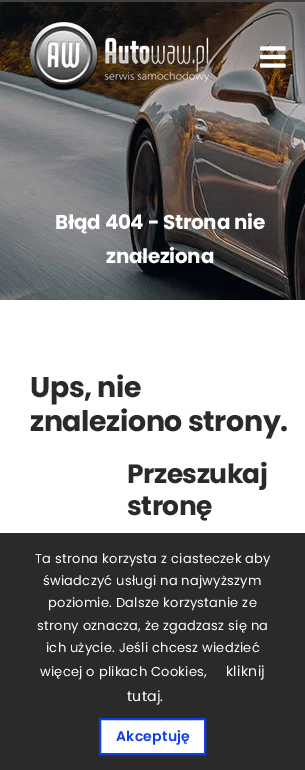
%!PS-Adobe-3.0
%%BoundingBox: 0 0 305 770
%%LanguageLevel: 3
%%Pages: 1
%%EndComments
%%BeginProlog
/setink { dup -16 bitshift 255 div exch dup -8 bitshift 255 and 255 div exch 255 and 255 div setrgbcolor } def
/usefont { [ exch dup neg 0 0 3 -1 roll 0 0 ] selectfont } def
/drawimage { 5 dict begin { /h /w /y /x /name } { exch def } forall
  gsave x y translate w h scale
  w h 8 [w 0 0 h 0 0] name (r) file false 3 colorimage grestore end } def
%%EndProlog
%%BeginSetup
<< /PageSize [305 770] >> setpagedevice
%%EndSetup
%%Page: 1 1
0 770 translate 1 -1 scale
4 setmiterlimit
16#FFFFFF setink
0 0 305 770 rectfill
16#3F3F3F setink
0 0 305 2 rectfill
(img3.raw) 0 2 305 298 drawimage
(img1.raw) 30 22 179 69 drawimage
(img2.raw) 260 46 26 22 drawimage
/Poppins-Bold 20 usefont
16#FFFFFF setink
55 229 moveto -0.3 0 (Błąd 404 - Strona nie) ashow
106 263 moveto -0.3 0 (znaleziona) ashow
/Poppins-Bold 28.4 usefont
16#2A2A2A setink
30 397 moveto -0.4 0 (Ups, nie) ashow
30 431 moveto -0.4 0 (znaleziono strony.) ashow
/Poppins-Bold 26.5 usefont
127 483 moveto -0.5 0 (Przeszukaj) ashow
127 515 moveto -0.5 0 (stronę) ashow
0 533 305 237 rectfill
/Poppins-Regular 13 usefont
16#FFFFFF setink
35 563 moveto 0.25 0 (Ta strona korzysta z ciasteczek aby) ashow
43 585 moveto 0.25 0 (świadczyć usługi na najwyższym) ashow
48 607 moveto 0.25 0 (poziomie. Dalsze korzystanie ze) ashow
37 630 moveto 0.25 0 (strony oznacza, że zgadzasz się na) ashow
46 652 moveto 0.25 0 (ich użycie. Jeśli chcesz wiedzieć) ashow
40 676 moveto 0.25 0 (więcej o plikach Cookies,) ashow
/Poppins-Regular 14 usefont
226 676 moveto 0.25 0 (kliknij) ashow
127 701 moveto 0.25 0 (tutaj.) ashow
100 719 moveto 205 719 lineto 205 754 lineto 100 754 lineto closepath gsave fill grestore
16#0B40E8 setink
2 setlinewidth
stroke
/Poppins-SemiBold 14 usefont
116 741 moveto 0.25 0 (Akceptuję) ashow
showpage
%%EOF
